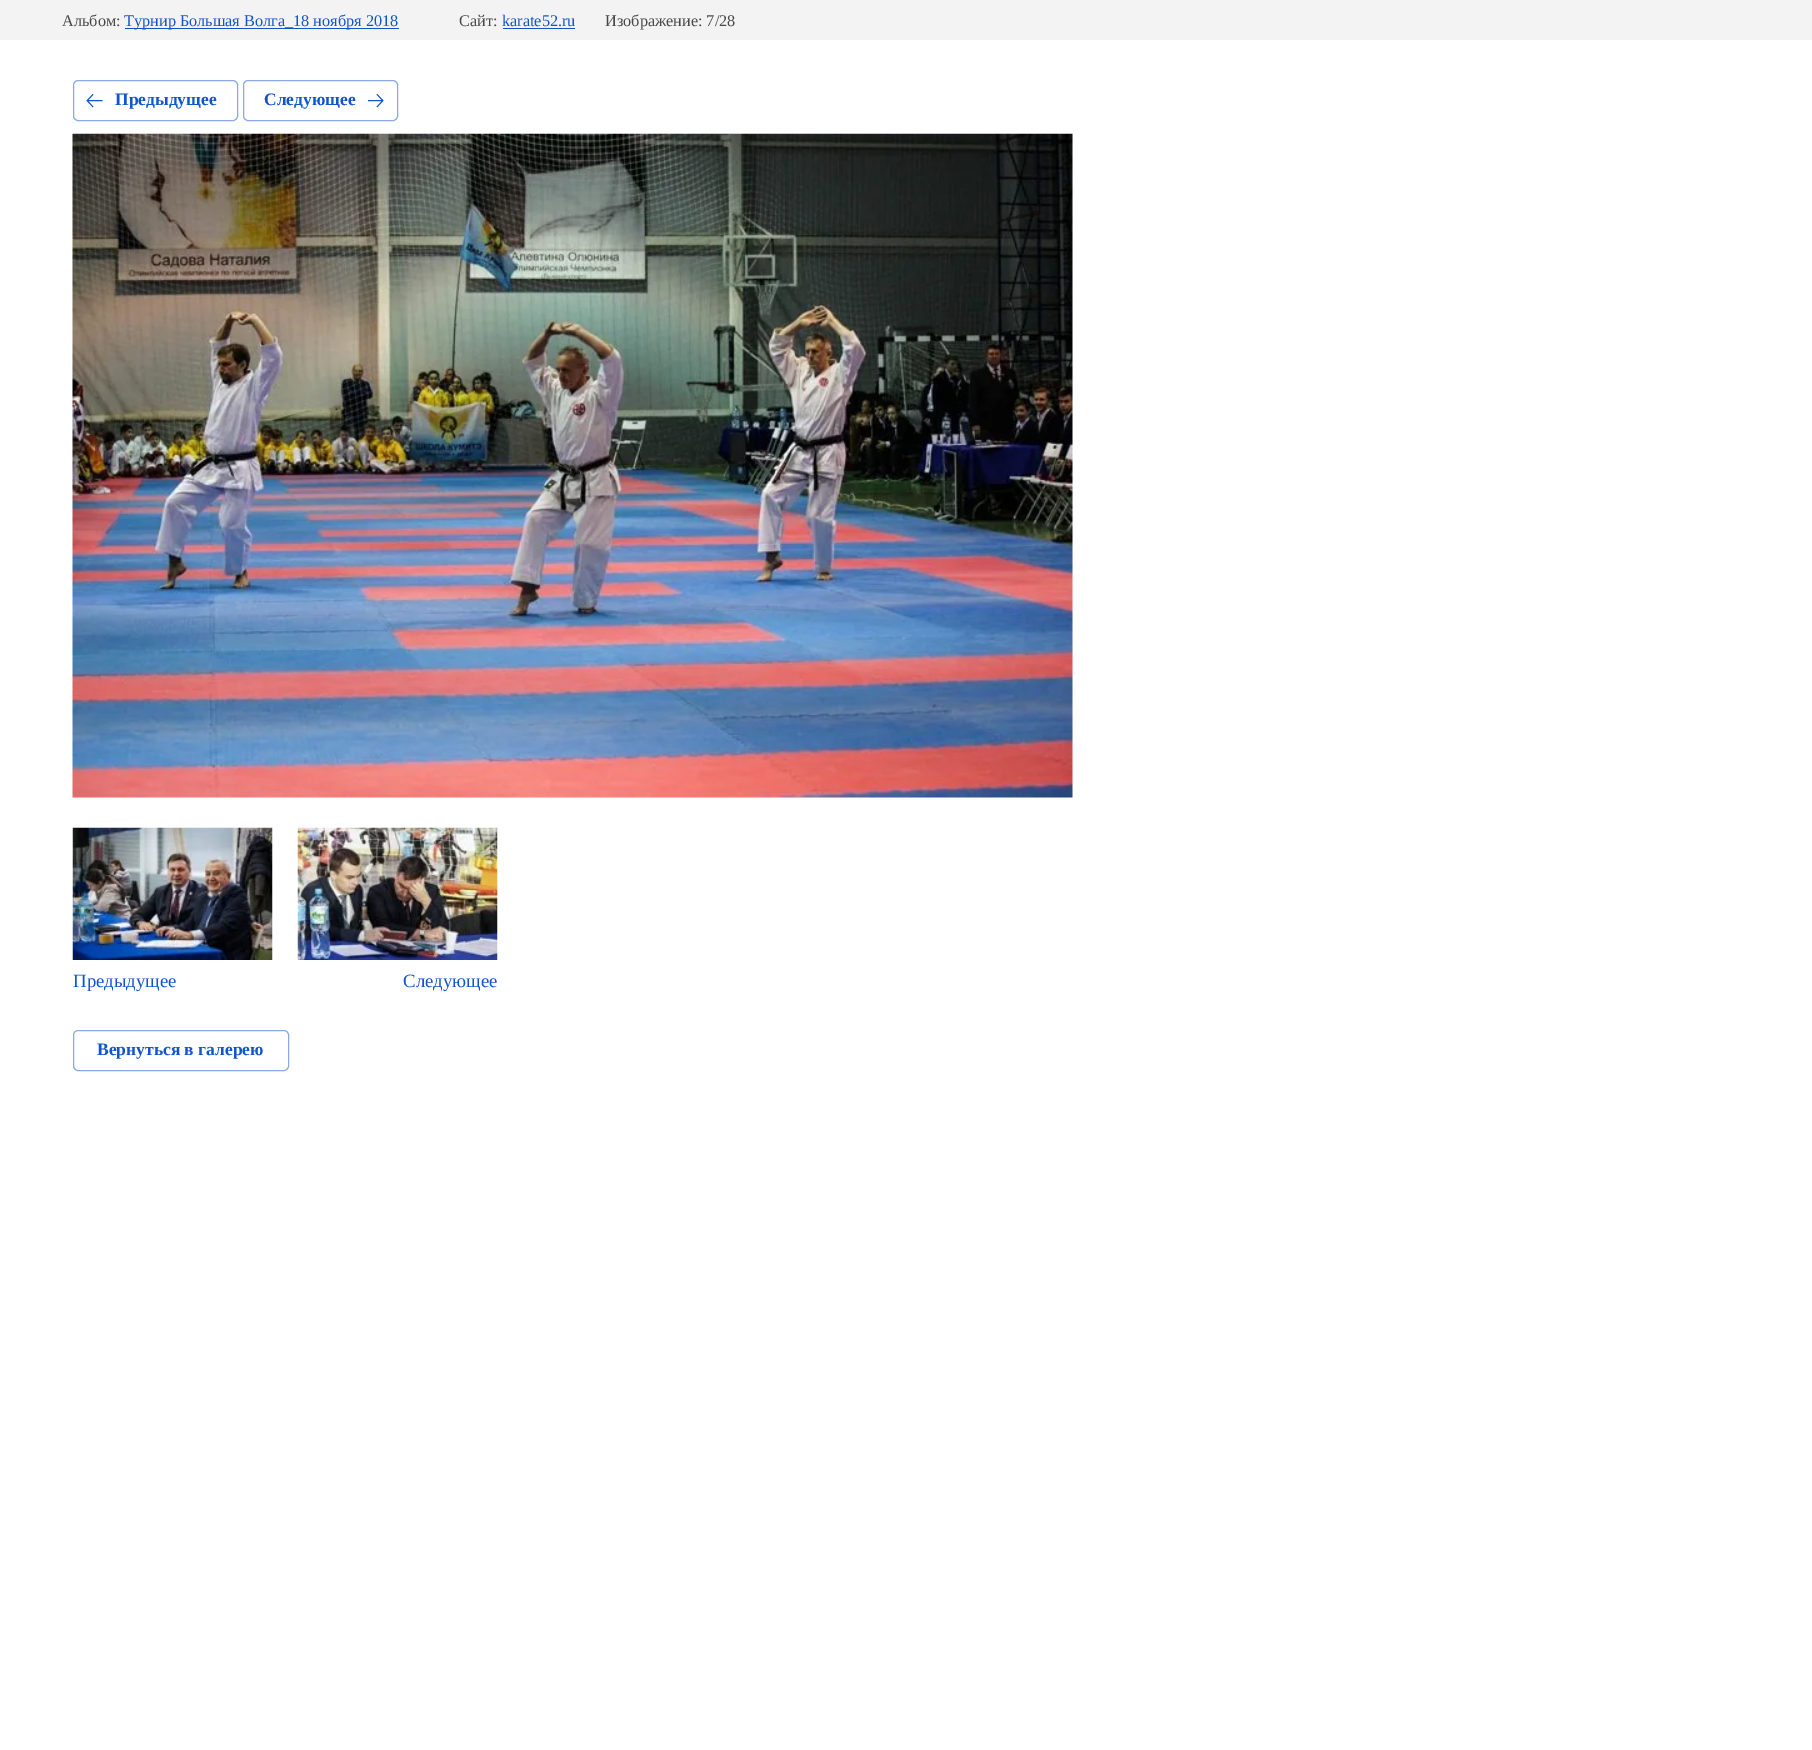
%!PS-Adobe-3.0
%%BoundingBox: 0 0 1812 1750
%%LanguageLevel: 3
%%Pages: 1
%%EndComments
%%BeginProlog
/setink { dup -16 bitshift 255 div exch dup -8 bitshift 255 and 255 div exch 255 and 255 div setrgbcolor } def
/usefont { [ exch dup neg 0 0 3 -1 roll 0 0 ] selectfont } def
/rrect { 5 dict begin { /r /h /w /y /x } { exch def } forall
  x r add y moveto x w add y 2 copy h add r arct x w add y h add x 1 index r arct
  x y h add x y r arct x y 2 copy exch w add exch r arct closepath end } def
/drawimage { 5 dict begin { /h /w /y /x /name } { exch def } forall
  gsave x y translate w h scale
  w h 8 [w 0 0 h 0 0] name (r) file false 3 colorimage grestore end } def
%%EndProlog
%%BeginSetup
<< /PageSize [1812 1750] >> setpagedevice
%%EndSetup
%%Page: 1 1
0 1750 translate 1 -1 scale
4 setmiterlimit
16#FFFFFF setink
0 0 1812 1750 rectfill
16#F3F3F3 setink
0 0 1812 40 rectfill
/LiberationSerif-Regular 16.25 usefont
16#484848 setink
62 26 moveto (Альбом:) show
16#1155CC setink
125 28 274 1 rectfill
124 26 moveto (Турнир Большая Волга_18 ноября 2018) show
16#484848 setink
459 26 moveto (Сайт:) show
16#1155CC setink
502 26 moveto (karate52.ru) show
503 28 72 1 rectfill
16#484848 setink
605 26 moveto (Изображение: 7/28) show
16#88AAE6 setink
73.5 80.5 164 40 4.5 rrect stroke
(img1.raw) 86 94 17 14 drawimage
/LiberationSerif-Bold 17.5 usefont
16#1155CC setink
115 105 moveto (Предыдущее) show
16#88AAE6 setink
243.5 80.5 154 40 4.5 rrect stroke
16#1155CC setink
264 105 moveto (Следующее) show
(img2.raw) 368 94 16 14 drawimage
(img3.raw) 72 133 1001 665 drawimage
(img4.raw) 72 827 201 133 drawimage
/LiberationSerif-Regular 18.75 usefont
73 987 moveto (Предыдущее) show
(img5.raw) 297 827 201 133 drawimage
403 987 moveto (Следующее) show
16#88AAE6 setink
73.5 1030.5 215 40 4.5 rrect stroke
/LiberationSerif-Bold 17.5 usefont
16#1155CC setink
97 1055 moveto (Вернуться в галерею) show
showpage
%%EOF
